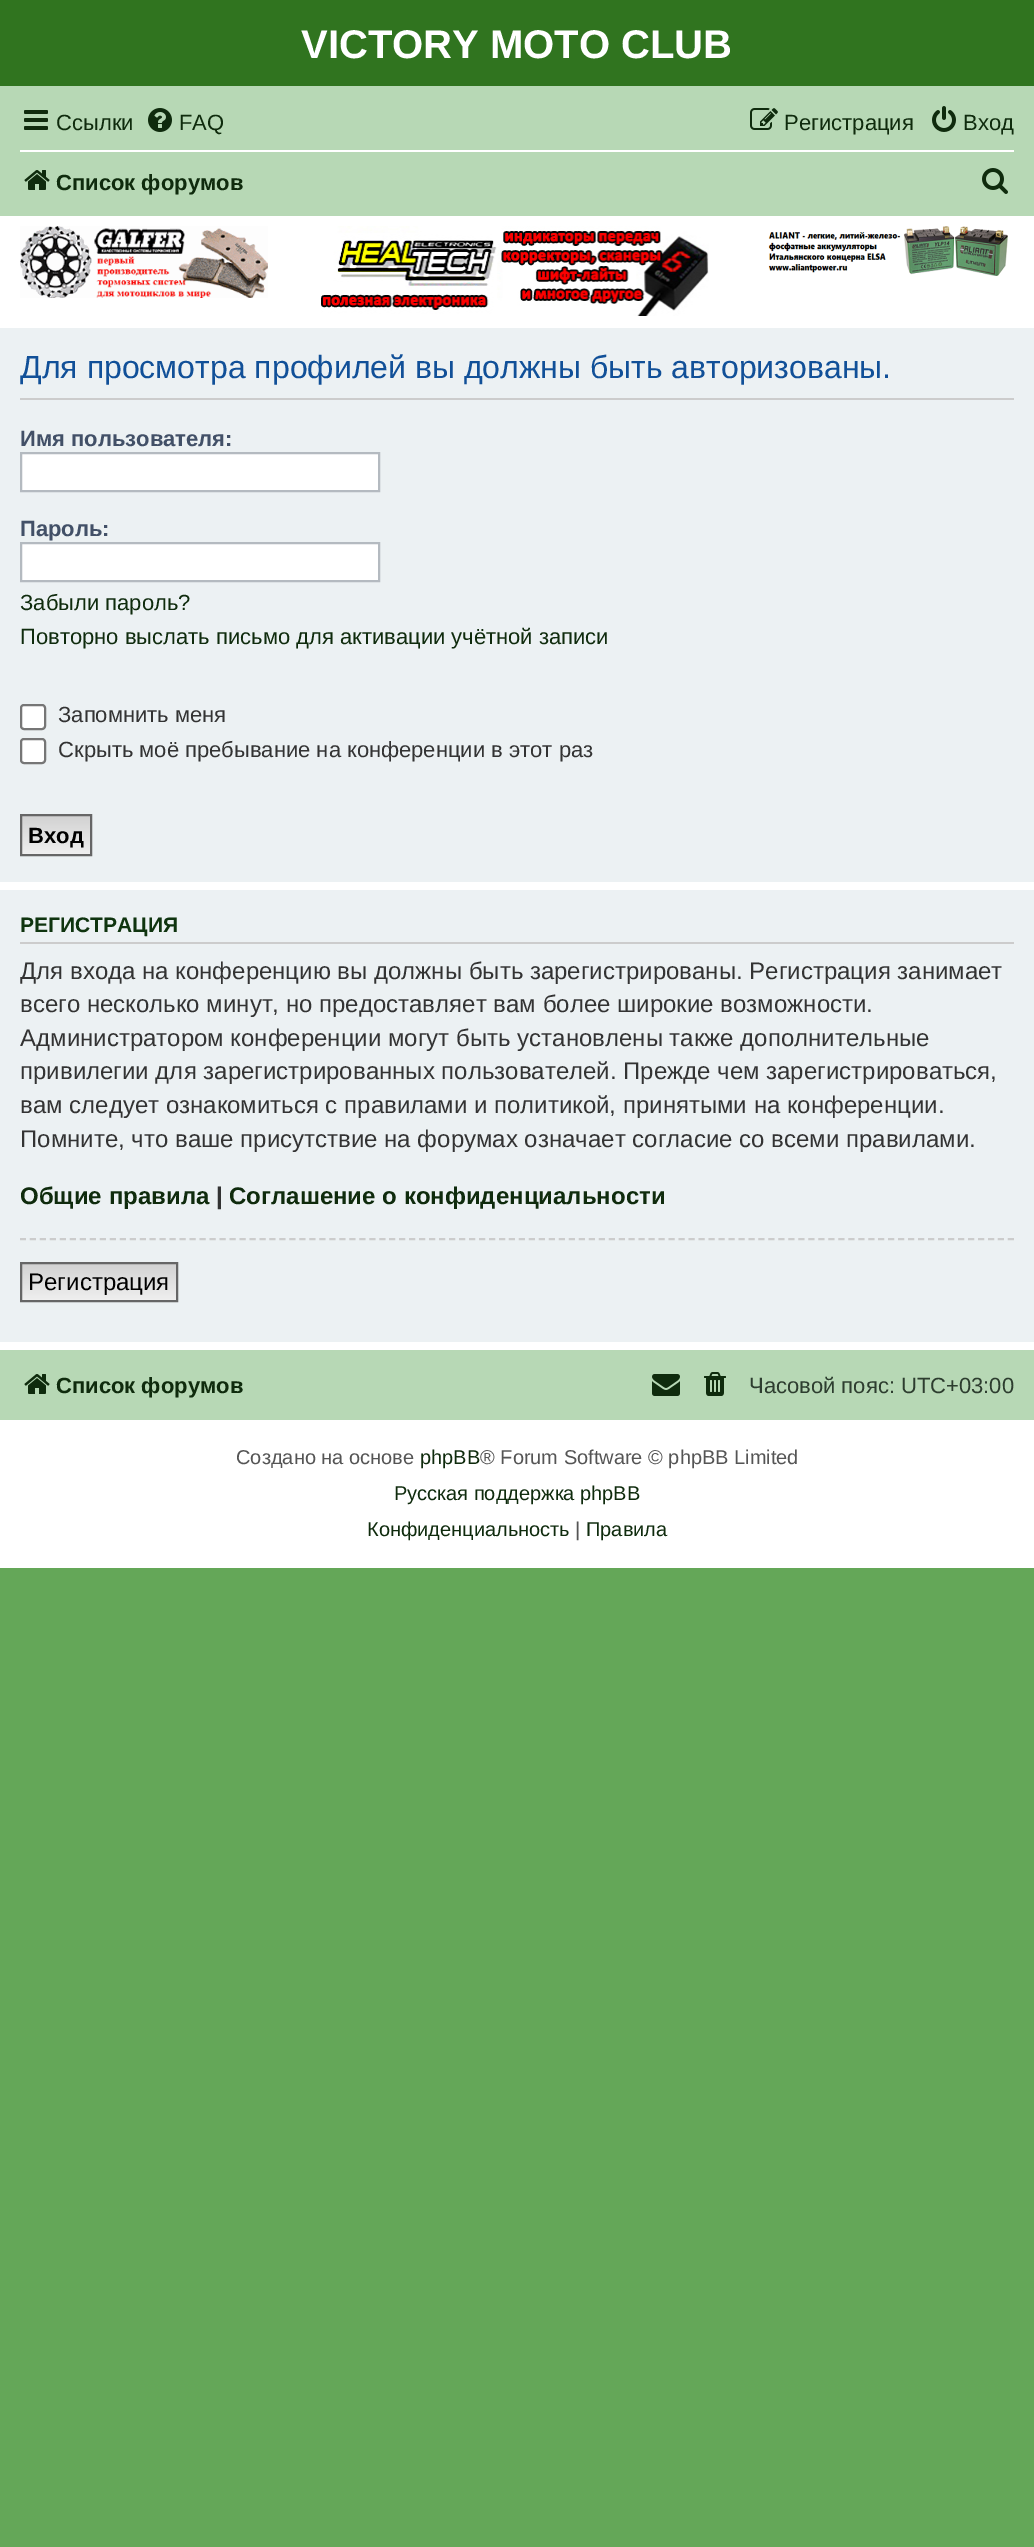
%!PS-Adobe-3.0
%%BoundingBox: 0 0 1034 2547
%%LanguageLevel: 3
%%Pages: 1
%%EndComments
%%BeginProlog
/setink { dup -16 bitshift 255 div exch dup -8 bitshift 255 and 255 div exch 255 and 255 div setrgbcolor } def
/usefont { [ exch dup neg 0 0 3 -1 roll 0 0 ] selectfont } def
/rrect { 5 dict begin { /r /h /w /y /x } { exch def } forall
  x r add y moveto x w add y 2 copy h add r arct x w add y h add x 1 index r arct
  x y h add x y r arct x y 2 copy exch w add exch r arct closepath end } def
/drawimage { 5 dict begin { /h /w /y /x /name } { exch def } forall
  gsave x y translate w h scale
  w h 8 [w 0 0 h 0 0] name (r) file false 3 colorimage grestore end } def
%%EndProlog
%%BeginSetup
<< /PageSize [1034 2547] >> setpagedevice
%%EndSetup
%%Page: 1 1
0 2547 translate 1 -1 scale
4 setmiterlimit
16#64A758 setink
0 0 1034 2547 rectfill
16#FFFFFF setink
0 216 1034 1352 rectfill
16#30741F setink
0 0 1034 86 rectfill
/LiberationSans-Bold 40 usefont
16#FFFFFF setink
301 58 moveto (VICTORY MOTO CLUB) show
16#B7D8B5 setink
0 86 1034 130 rectfill
(img1.raw) 24 110 24 20 drawimage
/LiberationSans-Regular 22 usefont
16#0F2B0D setink
56 130 moveto (Ссылки) show
(img2.raw) 148 108 24 24 drawimage
179 130 moveto (FAQ) show
(img3.raw) 750 108 28 22 drawimage
784 130 moveto (Регистрация) show
(img4.raw) 932 106 24 26 drawimage
963 130 moveto (Вход) show
16#FFFFFF setink
20 150 994 2 rectfill
(img5.raw) 24 170 26 20 drawimage
/LiberationSans-Bold 22 usefont
16#0F2B0D setink
56 190 moveto (Список форумов) show
(img6.raw) 982 168 26 26 drawimage
(img7.raw) 20 226 248 72 drawimage
(img8.raw) 321 226 388 90 drawimage
(img9.raw) 768 226 240 50 drawimage
16#ECF1F3 setink
0 328 1034 554 rectfill
16#CCCCCC setink
20 398 994 2 rectfill
/LiberationSans-Regular 32 usefont
16#115098 setink
20 378 moveto (Для просмотра профилей вы должны быть авторизованы.) show
/LiberationSans-Bold 22 usefont
16#425067 setink
20 446 moveto (Имя пользователя:) show
16#FFFFFF setink
21 453 moveto 379 453 lineto 379 491 lineto 21 491 lineto closepath gsave fill grestore
16#B4BAC0 setink
2 setlinewidth
stroke
16#425067 setink
20 536 moveto (Пароль:) show
16#FFFFFF setink
21 543 moveto 379 543 lineto 379 581 lineto 21 581 lineto closepath gsave fill grestore
16#B4BAC0 setink
stroke
/LiberationSans-Regular 22 usefont
16#0F2B0D setink
20 610 moveto (Забыли пароль?) show
20 644 moveto (Повторно выслать письмо для активации учётной записи) show
16#FFFFFF setink
21 705 24 24 3 rrect gsave fill grestore
16#767676 setink
stroke
16#333333 setink
58 722 moveto (Запомнить меня) show
16#FFFFFF setink
21 739 24 24 3 rrect gsave fill grestore
16#767676 setink
stroke
16#333333 setink
58 757 moveto (Скрыть моё пребывание на конференции в этот раз) show
gsave 22 816 moveto 90 816 lineto 90 854 lineto 22 854 lineto closepath clip newpath
<< /ShadingType 2 /ColorSpace /DeviceRGB /Coords [56 816 56 854] /Extend [true true] /Function << /FunctionType 2 /Domain [0 1] /C0 [0.824 0.824 0.824] /C1 [0.937 0.937 0.937] /N 1 >> >> shfill grestore
16#666666 setink
21 815 70 40 rectstroke
/LiberationSans-Bold 22 usefont
16#000000 setink
28 843 moveto (Вход) show
16#ECF1F3 setink
0 890 1034 452 rectfill
16#CCCCCC setink
20 942 994 2 rectfill
/LiberationSans-Bold 21 usefont
16#0F340F setink
20 932 moveto (РЕГИСТРАЦИЯ) show
/LiberationSans-Regular 24 usefont
16#333333 setink
[
    [(Для входа на конференцию вы должны быть зарегистрированы. Регистрация занимает) 20 979]
    [(всего несколько минут, но предоставляет вам более широкие возможности.) 20 1012]
    [(Администратором конференции могут быть установлены также дополнительные) 20 1046]
    [(привилегии для зарегистрированных пользователей. Прежде чем зарегистрироваться,) 20 1079]
    [(вам следует ознакомиться с правилами и политикой, принятыми на конференции.) 20 1113]
    [(Помните, что ваше присутствие на форумах означает согласие со всеми правилами.) 20 1147]
] { aload pop moveto show } forall
/LiberationSans-Bold 24 usefont
16#0F2B0D setink
20 1204 moveto (Общие правила) show
16#333333 setink
216 1204 moveto (|) show
16#0F2B0D setink
229 1204 moveto (Соглашение о конфиденциальности) show
16#CCCCCC setink
[6 3.98] 0 setdash
20 1239 moveto 1014 1239 lineto stroke
gsave 22 1264 moveto 176 1264 lineto 176 1300 lineto 22 1300 lineto closepath clip newpath
<< /ShadingType 2 /ColorSpace /DeviceRGB /Coords [99 1264 99 1300] /Extend [true true] /Function << /FunctionType 2 /Domain [0 1] /C0 [0.824 0.824 0.824] /C1 [0.937 0.937 0.937] /N 1 >> >> shfill grestore
16#666666 setink
[] 0 setdash
21 1263 156 38 rectstroke
/LiberationSans-Regular 24 usefont
16#000000 setink
28 1290 moveto (Регистрация) show
16#B7D8B5 setink
0 1350 1034 70 rectfill
(img5.raw) 24 1374 26 20 drawimage
/LiberationSans-Bold 22 usefont
16#0F2B0D setink
56 1393 moveto (Список форумов) show
(img10.raw) 652 1374 28 22 drawimage
(img11.raw) 704 1372 22 24 drawimage
/LiberationSans-Regular 22 usefont
16#2D3D2F setink
749 1393 moveto (Часовой пояс: UTC+03:00) show
/LiberationSans-Regular 20 usefont
16#555555 setink
236 1464 moveto (Создано на основе) show
16#0F2B0D setink
420 1464 moveto (phpBB) show
16#555555 setink
480 1464 moveto (® Forum Software © phpBB Limited) show
16#0F2B0D setink
394 1500 moveto (Русская поддержка phpBB) show
367 1536 moveto (Конфиденциальность) show
16#555555 setink
575 1536 moveto (|) show
16#0F2B0D setink
586 1536 moveto (Правила) show
showpage
%%EOF
